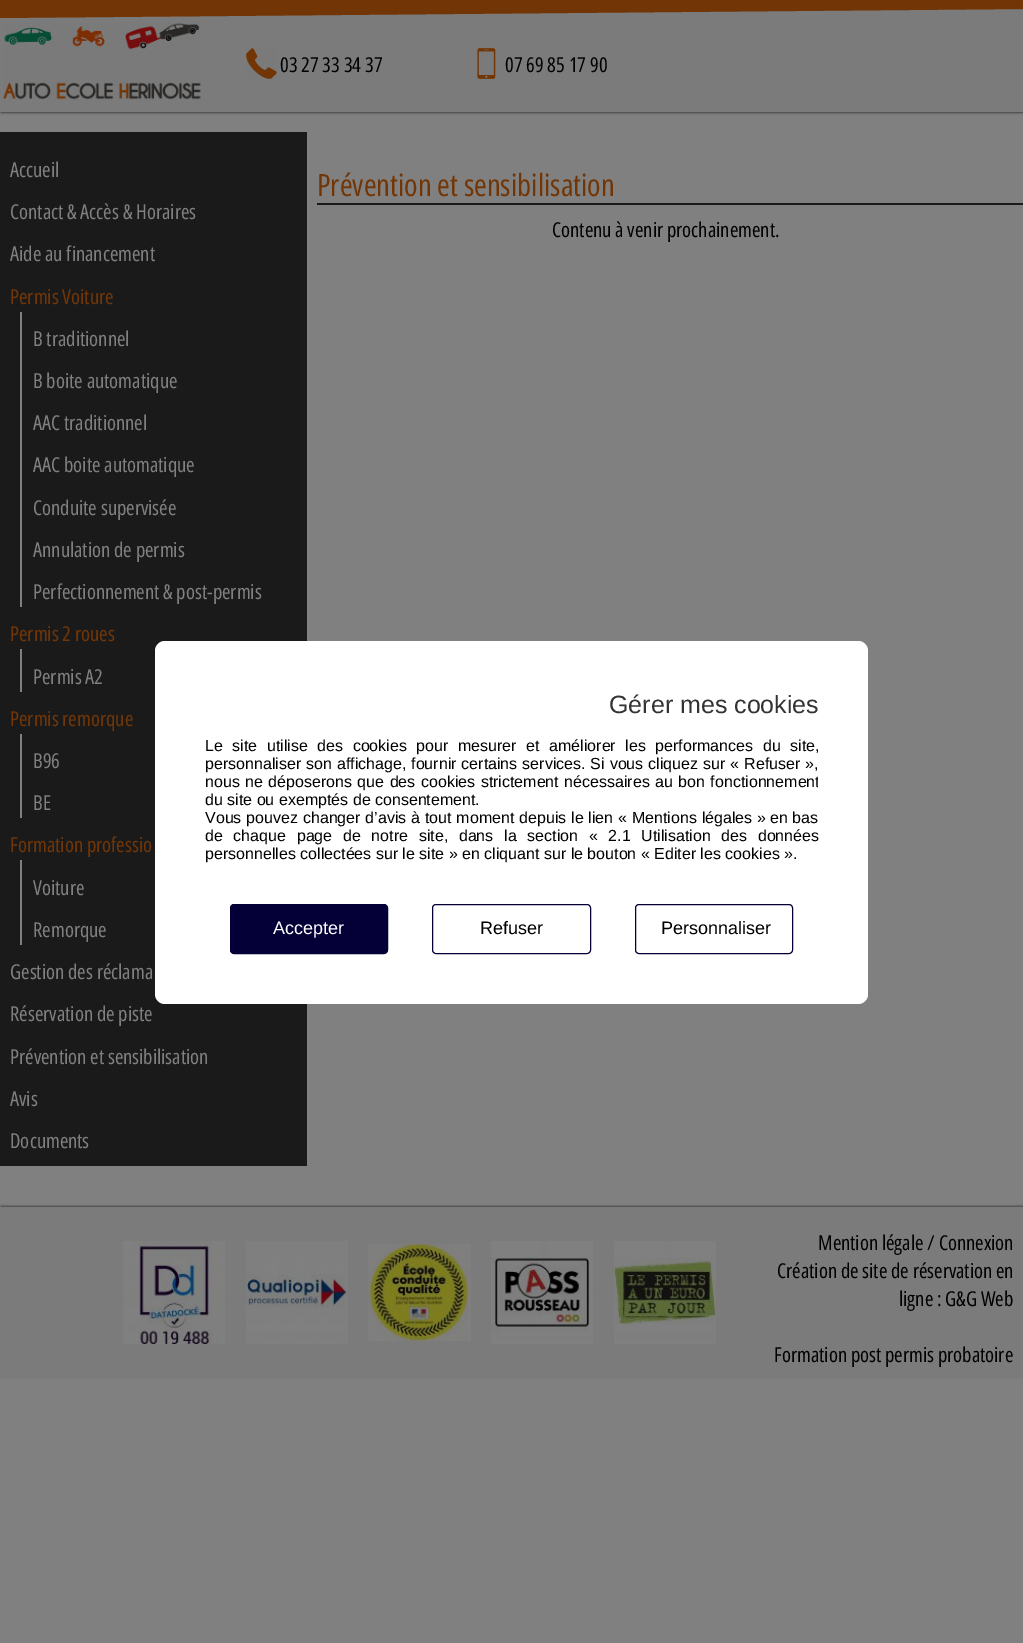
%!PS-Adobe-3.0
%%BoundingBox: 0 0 1023 1643
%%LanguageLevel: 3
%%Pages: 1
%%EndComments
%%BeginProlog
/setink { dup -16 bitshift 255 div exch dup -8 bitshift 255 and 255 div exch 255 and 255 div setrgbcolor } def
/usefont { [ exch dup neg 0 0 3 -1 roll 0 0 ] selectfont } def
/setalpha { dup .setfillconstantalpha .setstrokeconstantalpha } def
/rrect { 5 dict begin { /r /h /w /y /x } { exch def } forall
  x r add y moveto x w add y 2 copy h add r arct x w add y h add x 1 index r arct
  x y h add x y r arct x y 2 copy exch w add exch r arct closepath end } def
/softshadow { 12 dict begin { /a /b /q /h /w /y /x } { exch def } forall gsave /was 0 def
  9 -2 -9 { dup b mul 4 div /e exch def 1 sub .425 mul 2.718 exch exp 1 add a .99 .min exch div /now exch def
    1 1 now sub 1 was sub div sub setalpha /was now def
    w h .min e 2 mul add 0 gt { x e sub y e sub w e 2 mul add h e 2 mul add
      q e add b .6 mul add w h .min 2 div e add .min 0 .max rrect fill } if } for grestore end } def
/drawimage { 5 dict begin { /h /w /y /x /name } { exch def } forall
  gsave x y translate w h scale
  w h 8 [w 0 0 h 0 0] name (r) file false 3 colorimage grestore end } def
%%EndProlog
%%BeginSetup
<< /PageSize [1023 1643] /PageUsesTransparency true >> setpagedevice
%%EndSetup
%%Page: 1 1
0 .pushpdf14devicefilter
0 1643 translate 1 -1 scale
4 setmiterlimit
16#808080 setink
0 0 1023 1643 rectfill
16#404040 setink
1 1 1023 112 0 1 1 softshadow
16#7B7B7B setink
0 9 1023 103 rectfill
16#723606 setink
-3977 22 moveto 1023 -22 lineto 1023 9 lineto -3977 53 lineto closepath fill
(img1.raw) 3 23 198 77 drawimage
(img2.raw) 246 48 31 31 drawimage
/OpenSansCondensed-Regular 20.5 usefont
16#000000 setink
280 72 moveto (03 27 33 34 37) show
(img3.raw) 477 48 19 31 drawimage
505 72 moveto (07 69 85 17 90) show
16#1A1A1A setink
0 132 307 1034 rectfill
16#808080 setink
[
    [(Accueil) 10 177]
    [(Contact & Accès & Horaires) 10 219]
    [(Aide au financement) 10 261]
] { aload pop moveto show } forall
16#723606 setink
10 304 moveto (Permis Voiture) show
16#808080 setink
20 312 2 295 rectfill
[
    [(B traditionnel) 33 346]
    [(B boite automatique) 33 388]
    [(AAC traditionnel) 33 430]
    [(AAC boite automatique) 33 472]
    [(Conduite supervisée) 33 515]
    [(Annulation de permis) 33 557]
    [(Perfectionnement & post-permis) 33 599]
] { aload pop moveto show } forall
16#723606 setink
10 641 moveto (Permis 2 roues) show
16#808080 setink
20 649 2 43 rectfill
33 684 moveto (Permis A2) show
16#723606 setink
10 726 moveto (Permis remorque) show
16#808080 setink
20 734 2 84 rectfill
33 768 moveto (B96) show
33 810 moveto (BE) show
16#723606 setink
10 852 moveto (Formation professio) show
16#808080 setink
20 860 2 85 rectfill
[
    [(Voiture) 33 895]
    [(Remorque) 33 937]
    [(Gestion des réclama) 10 979]
    [(Réservation de piste) 10 1021]
    [(Prévention et sensibilisation) 10 1064]
    [(Avis) 10 1106]
    [(Documents) 10 1148]
] { aload pop moveto show } forall
/OpenSansCondensed-Regular 30.75 usefont
16#723606 setink
317 196 moveto (Prévention et sensibilisation) show
16#1A1A1A setink
317 203 706 2 rectfill
/OpenSansCondensed-Regular 20.5 usefont
16#000000 setink
552 237 moveto (Contenu à venir prochainement.) show
16#404040 setink
1 1206 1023 171 0 1 1 softshadow
16#7B7B7B setink
0 1207 1023 171 rectfill
(img4.raw) 123 1241 102 103 drawimage
(img5.raw) 246 1241 102 103 drawimage
(img6.raw) 368 1244 103 97 drawimage
(img7.raw) 491 1241 102 103 drawimage
(img8.raw) 614 1241 102 103 drawimage
16#000000 setink
[
    [(Mention légale / Connexion) 818 1250]
    [(Création de site de réservation en) 777 1278]
    [(ligne : G&G Web) 899 1306]
    [(Formation post permis probatoire) 774 1362]
] { aload pop moveto show } forall
16#FFFFFF setink
155 641 713 363 10 rrect fill
/LiberationSans-Regular 25 usefont
16#333333 setink
609 713 moveto (Gérer mes cookies) show
/LiberationSans-Regular 16 usefont
16#000000 setink
205 751 moveto 5.1 0 32 (Le site utilise des cookies pour mesurer et améliorer les performances du site,) widthshow
205 769 moveto 0.5 0 32 (personnaliser son affichage, fournir certains services. Si vous cliquez sur « Refuser »,) widthshow
gsave
205 691 613 173 rectclip
205 787 moveto 1 0 32 (nous ne déposerons que des cookies strictement nécessaires au bon fonctionnement) widthshow
grestore
205 805 moveto (du site ou exemptés de consentement.) show
205 823 moveto 0.4 0 32 (Vous pouvez changer d’avis à tout moment depuis le lien « Mentions légales ») widthshow
770 823 moveto (en bas) show
205 841 moveto 6.25 0 32 (de chaque page de notre site, dans la section « 2.1 Utilisation des données) widthshow
205 859 moveto (personnelles collectées sur le site » en cliquant sur le bouton « Editer les cookies ».) show
16#040037 setink
230.5 904.5 157 49 3.5 rrect gsave fill grestore
stroke
/LiberationSans-Regular 18 usefont
16#FFFFFF setink
273 934 moveto (Accepter) show
16#040037 setink
432.5 904.5 158 49 3.5 rrect stroke
16#000000 setink
480 934 moveto (Refuser) show
16#040037 setink
635.5 904.5 157 49 3.5 rrect stroke
16#000000 setink
661 934 moveto (Personnaliser) show
.poppdf14devicefilter showpage
%%EOF
